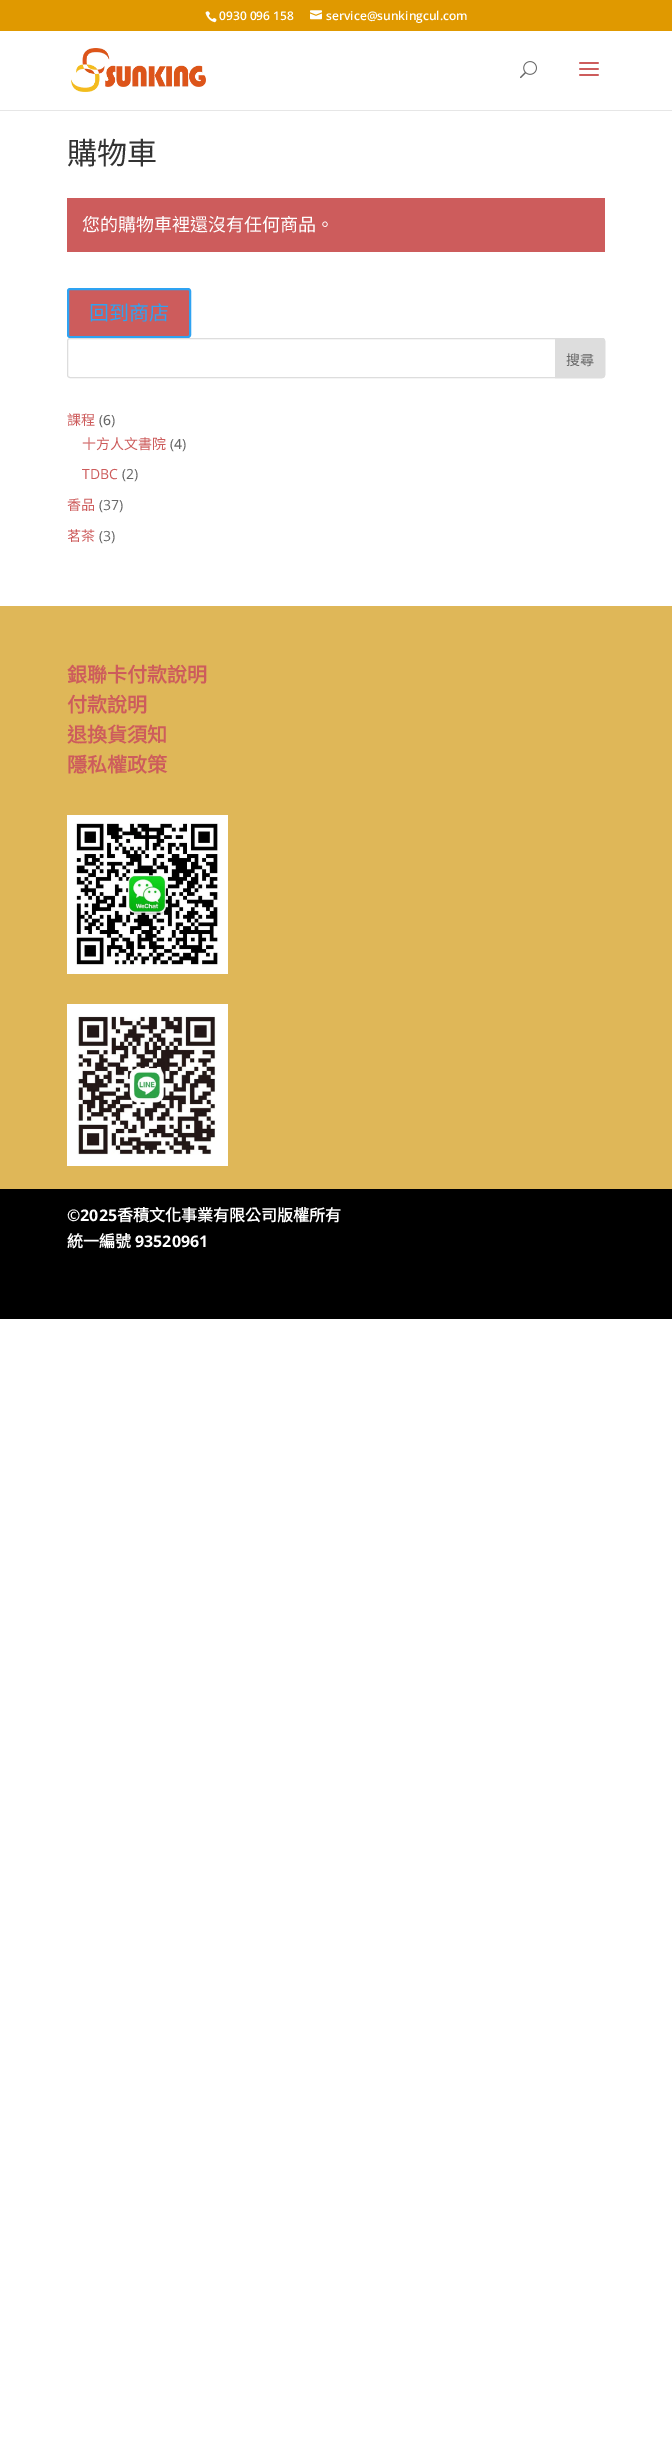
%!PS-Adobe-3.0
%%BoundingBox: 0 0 672 2446
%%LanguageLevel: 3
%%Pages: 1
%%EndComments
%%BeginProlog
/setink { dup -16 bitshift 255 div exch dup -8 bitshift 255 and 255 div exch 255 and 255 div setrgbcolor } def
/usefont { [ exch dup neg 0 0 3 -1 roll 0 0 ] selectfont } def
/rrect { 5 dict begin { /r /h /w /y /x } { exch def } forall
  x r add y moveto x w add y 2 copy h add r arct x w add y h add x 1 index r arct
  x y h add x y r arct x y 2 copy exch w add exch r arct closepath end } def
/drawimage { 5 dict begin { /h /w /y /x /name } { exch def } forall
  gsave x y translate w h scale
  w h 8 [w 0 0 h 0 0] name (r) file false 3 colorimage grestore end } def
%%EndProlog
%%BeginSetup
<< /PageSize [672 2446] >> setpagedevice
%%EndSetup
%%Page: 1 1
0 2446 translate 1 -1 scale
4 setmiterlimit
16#FFFFFF setink
0 0 672 2446 rectfill
16#E09900 setink
0 0 672 31 rectfill
(img1.raw) 205 11 12 12 drawimage
/OpenSans-SemiBold 12 usefont
16#FFFFFF setink
219 20 moveto (0930 096 158) show
(img2.raw) 310 10 12 10 drawimage
326 20 moveto (service@sunkingcul.com) show
16#E6E6E6 setink
0 110 672 1 rectfill
(img3.raw) 71 48 135 44 drawimage
(img4.raw) 520 61 17 18 drawimage
(img5.raw) 579 62 20 14 drawimage
/NotoSansCJKTC-Regular 30 usefont
16#333333 setink
67 164 moveto (購物車) show
16#CD5C5C setink
67 198 538 54 rectfill
/NotoSansCJKTC-Regular 18 usefont
16#FFFFFF setink
82 231 moveto (您的購物車裡還沒有任何商品。) show
16#CD5C5C setink
68 289 122 48 2 rrect gsave fill grestore
16#2EA3F2 setink
2 setlinewidth
stroke
/NotoSansCJKTC-Regular 20 usefont
89 320 moveto (回到商店) show
16#DDDDDD setink
1 setlinewidth
67.5 338.5 537 39 2.5 rrect stroke
555.5 338.5 moveto 602 338.5 lineto 603.5 338.5 604.5 339.5 604.5 341 curveto 604.5 375 lineto 604.5 376.5 603.5 377.5 602 377.5 curveto 555.5 377.5 lineto closepath gsave fill grestore
stroke
/NotoSansCJKTC-Regular 14 usefont
16#666666 setink
566 365 moveto (搜尋) show
16#CD5C5C setink
67 425 moveto (課程) show
/OpenSans-Regular 14 usefont
16#666666 setink
99 425 moveto (\() show
/OpenSans-Medium 14 usefont
103 425 moveto (6) show
/OpenSans-Regular 14 usefont
111 425 moveto (\)) show
/NotoSansCJKTC-Regular 14 usefont
16#CD5C5C setink
82 449 moveto (十方人文書院) show
/OpenSans-Regular 14 usefont
16#666666 setink
170 449 moveto (\() show
/OpenSans-Medium 14 usefont
174 449 moveto (4) show
/OpenSans-Regular 14 usefont
182 449 moveto (\)) show
16#CD5C5C setink
82 479 moveto (TDBC) show
16#666666 setink
122 479 moveto (\(2\)) show
/NotoSansCJKTC-Regular 14 usefont
16#CD5C5C setink
67 510 moveto (香品) show
/OpenSans-Regular 14 usefont
16#666666 setink
99 510 moveto (\(37\)) show
/NotoSansCJKTC-Regular 14 usefont
16#CD5C5C setink
67 541 moveto (茗茶) show
/OpenSans-Regular 14 usefont
16#666666 setink
99 541 moveto (\(3\)) show
16#DFB758 setink
0 606 672 583 rectfill
/NotoSansCJKTC-Bold 20 usefont
16#CD5C5C setink
[
    [(銀聯卡付款說明) 67 682]
    [(付款說明) 67 712]
    [(退換貨須知) 67 742]
    [(隱私權政策) 67 772]
] { aload pop moveto show } forall
(img6.raw) 67 815 161 159 drawimage
(img7.raw) 67 1004 161 162 drawimage
16#000000 setink
0 1189 672 130 rectfill
/OpenSans-Bold 16 usefont
16#FFFFFF setink
67 1221 moveto (©2025) show
/NotoSansCJKTC-Bold 16 usefont
117 1221 moveto (香積文化事業有限公司版權所有) show
67 1247 moveto (統一編號) show
/OpenSans-Bold 16 usefont
135 1247 moveto (93520961) show
showpage
%%EOF
